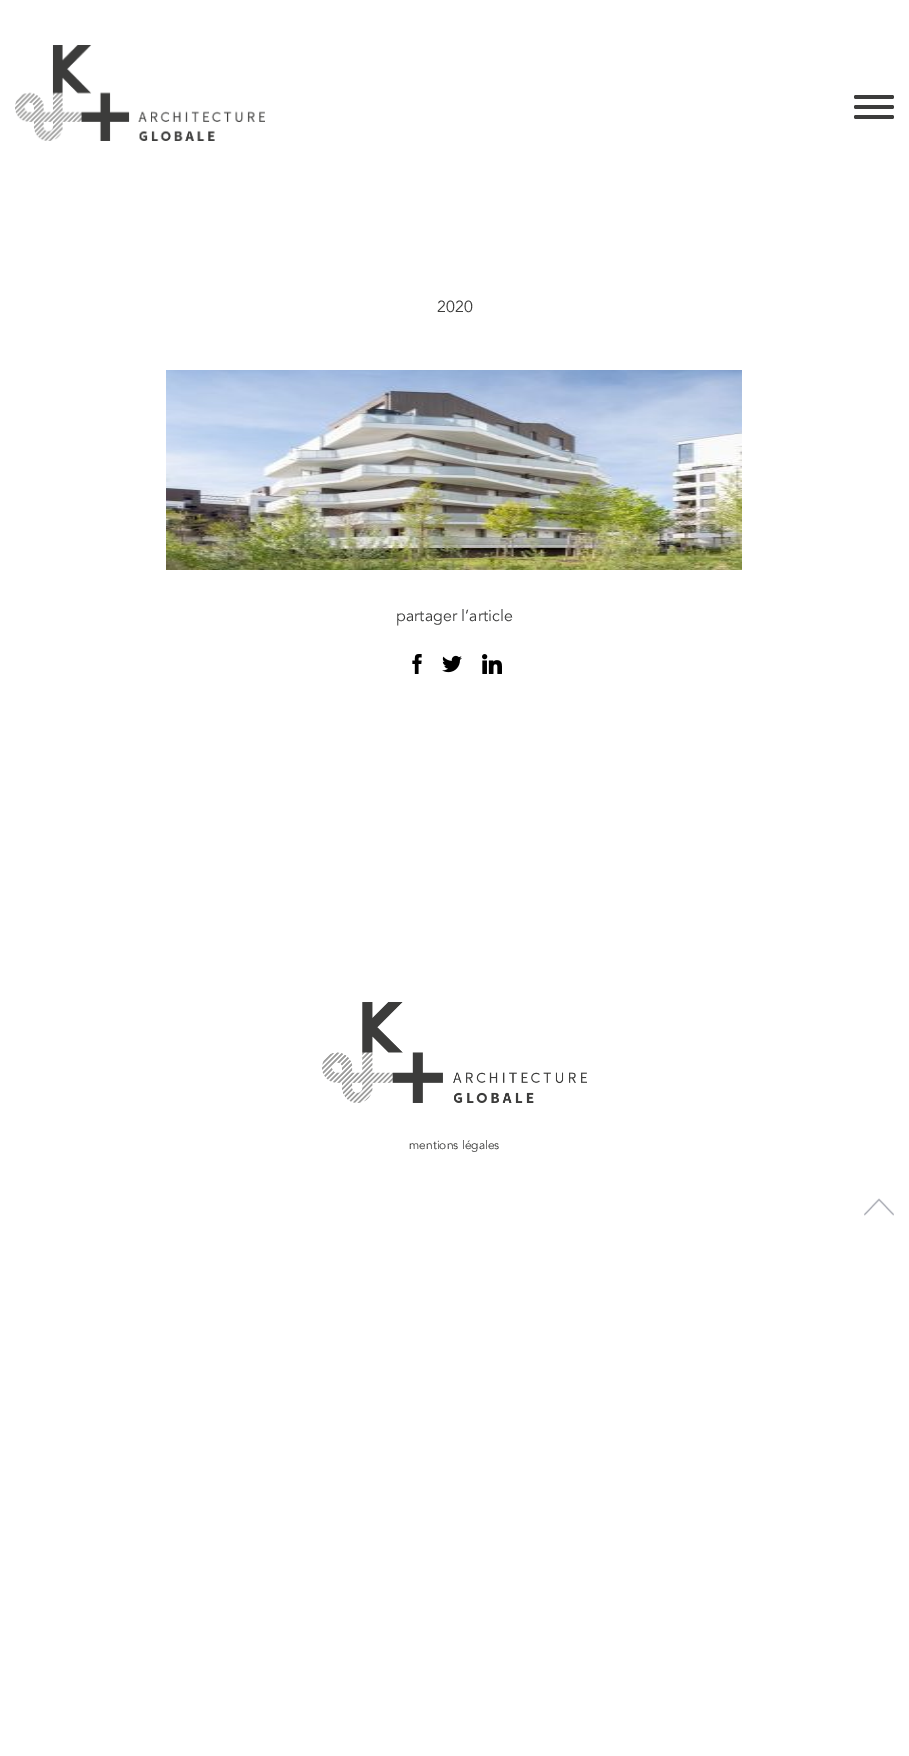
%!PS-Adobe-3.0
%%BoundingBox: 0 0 909 1756
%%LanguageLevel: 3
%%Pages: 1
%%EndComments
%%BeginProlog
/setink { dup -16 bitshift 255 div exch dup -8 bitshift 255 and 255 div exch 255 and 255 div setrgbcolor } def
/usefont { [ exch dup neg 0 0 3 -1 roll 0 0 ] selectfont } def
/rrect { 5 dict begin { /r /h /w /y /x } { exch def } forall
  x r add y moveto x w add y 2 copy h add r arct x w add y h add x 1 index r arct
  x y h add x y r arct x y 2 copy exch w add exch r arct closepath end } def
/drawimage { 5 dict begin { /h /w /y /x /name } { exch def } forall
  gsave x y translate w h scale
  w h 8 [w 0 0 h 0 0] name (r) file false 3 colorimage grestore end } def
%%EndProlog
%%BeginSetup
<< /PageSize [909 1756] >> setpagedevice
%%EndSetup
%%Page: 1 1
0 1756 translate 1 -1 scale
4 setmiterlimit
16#FFFFFF setink
0 0 909 1756 rectfill
(img1.raw) 15 45 250 96 drawimage
16#3C3C3B setink
854 105 40 4 2 rrect fill
854 95 40 4 2 rrect fill
854 115 40 4 2 rrect fill
/Avenir-Regular 16 usefont
437 312 moveto (2020) show
(img2.raw) 166 370 576 200 drawimage
396 621 moveto (partager l’article) show
(img3.raw) 412 654 10 20 drawimage
(img4.raw) 442 655 20 18 drawimage
(img5.raw) 482 654 20 20 drawimage
(img6.raw) 322 1002 265 101 drawimage
/Avenir-Regular 12 usefont
409 1149 moveto (mentions légales) show
(img7.raw) 864 1198 30 18 drawimage
showpage
%%EOF
